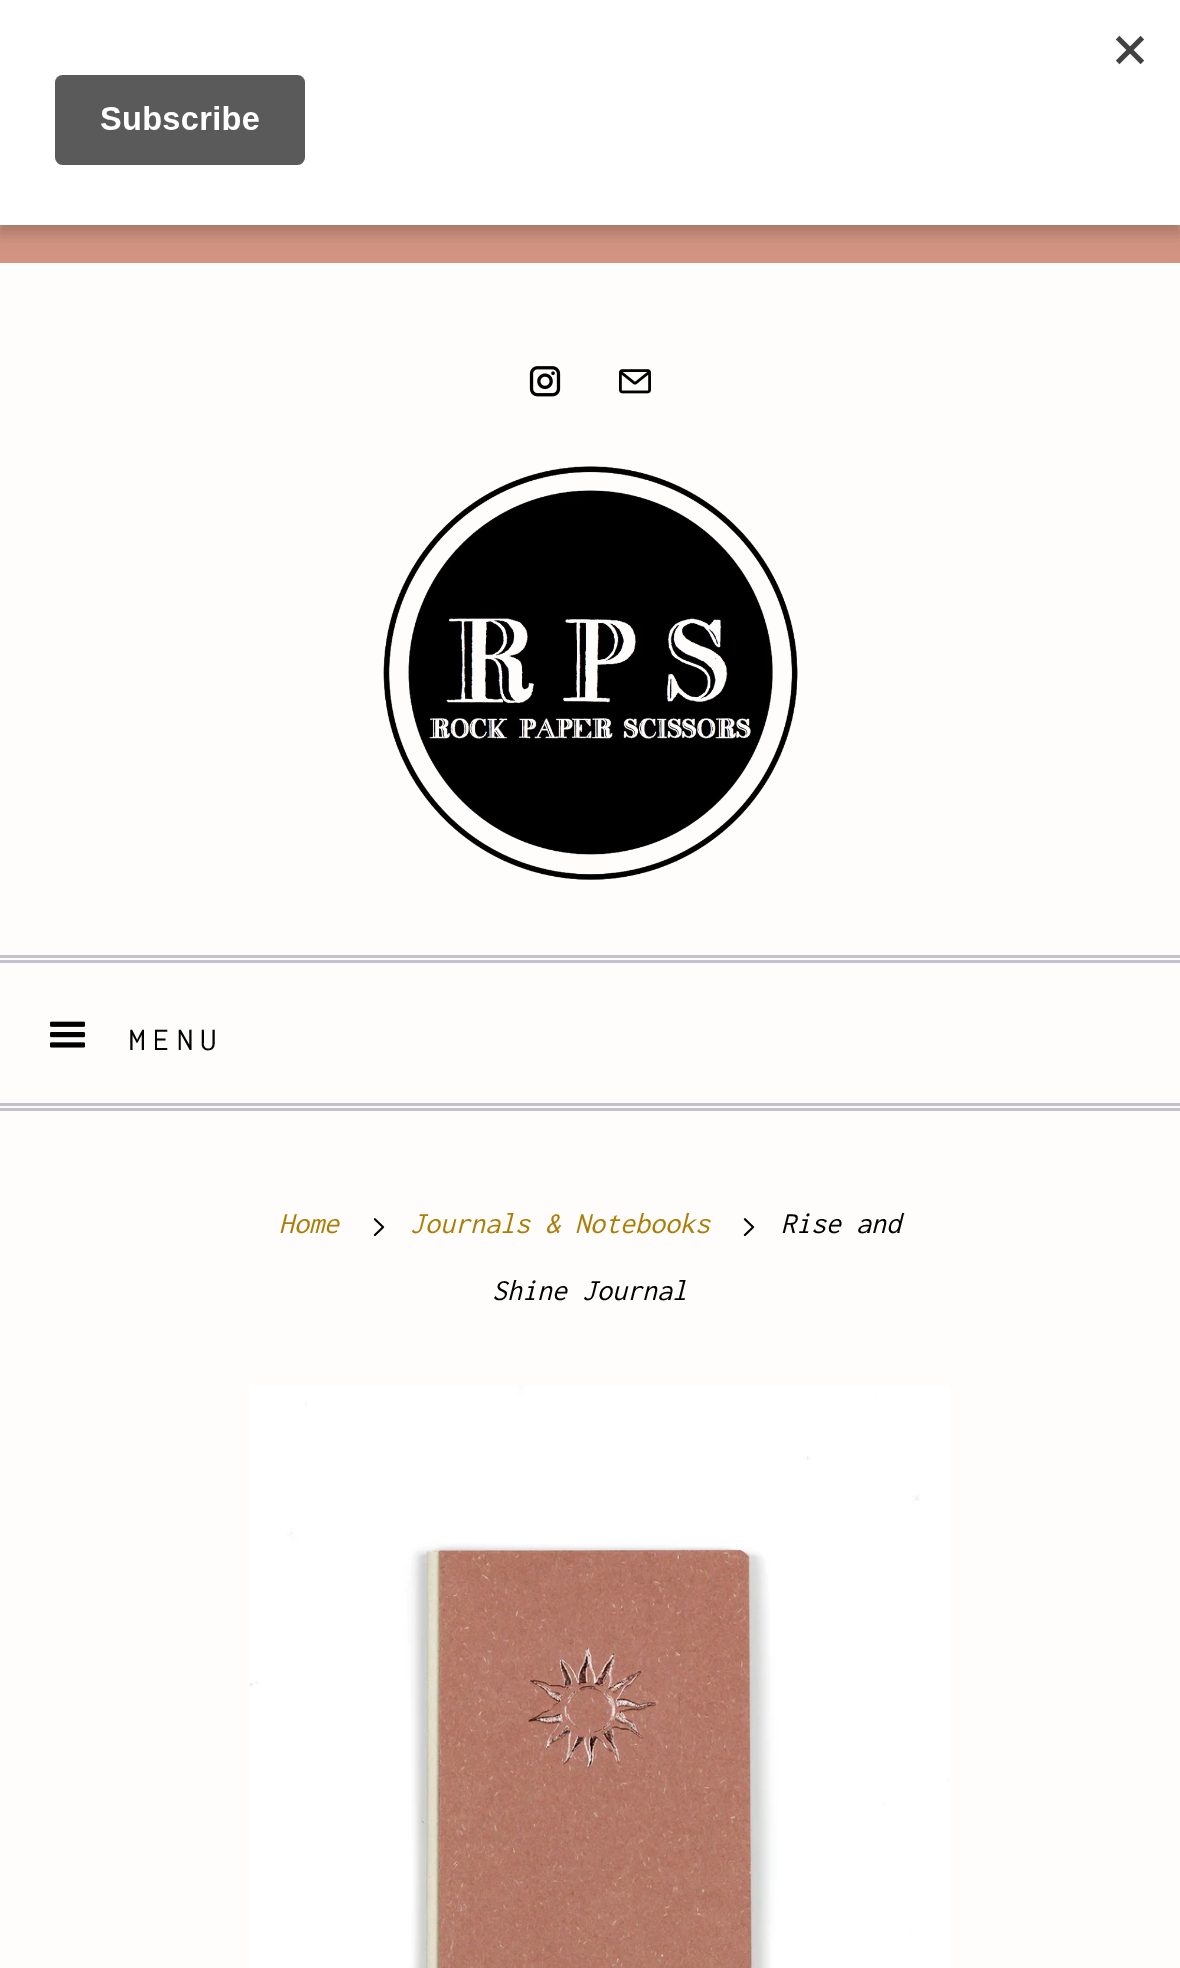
%!PS-Adobe-3.0
%%BoundingBox: 0 0 1180 1968
%%LanguageLevel: 3
%%Pages: 1
%%EndComments
%%BeginProlog
/setink { dup -16 bitshift 255 div exch dup -8 bitshift 255 and 255 div exch 255 and 255 div setrgbcolor } def
/usefont { [ exch dup neg 0 0 3 -1 roll 0 0 ] selectfont } def
/setalpha { dup .setfillconstantalpha .setstrokeconstantalpha } def
/rrect { 5 dict begin { /r /h /w /y /x } { exch def } forall
  x r add y moveto x w add y 2 copy h add r arct x w add y h add x 1 index r arct
  x y h add x y r arct x y 2 copy exch w add exch r arct closepath end } def
/softshadow { 12 dict begin { /a /b /q /h /w /y /x } { exch def } forall gsave /was 0 def
  9 -2 -9 { dup b mul 4 div /e exch def 1 sub .425 mul 2.718 exch exp 1 add a .99 .min exch div /now exch def
    1 1 now sub 1 was sub div sub setalpha /was now def
    w h .min e 2 mul add 0 gt { x e sub y e sub w e 2 mul add h e 2 mul add
      q e add b .6 mul add w h .min 2 div e add .min 0 .max rrect fill } if } for grestore end } def
/drawimage { 5 dict begin { /h /w /y /x /name } { exch def } forall
  gsave x y translate w h scale
  w h 8 [w 0 0 h 0 0] name (r) file false 3 colorimage grestore end } def
%%EndProlog
%%BeginSetup
<< /PageSize [1180 1968] /PageUsesTransparency true >> setpagedevice
%%EndSetup
%%Page: 1 1
0 .pushpdf14devicefilter
0 1968 translate 1 -1 scale
4 setmiterlimit
16#FFFDFC setink
0 0 1180 1968 rectfill
16#D29481 setink
0 225 1180 38 rectfill
16#000000 setink
0 8 1180 225 0 7.5 0.2 softshadow
16#FFFFFF setink
0 0 1180 225 rectfill
(img1.raw) 55 35 1089 130 drawimage
(img2.raw) 529 366 32 31 drawimage
(img3.raw) 619 369 32 25 drawimage
(img4.raw) 383 466 415 414 drawimage
[
    [0 955 1180 3 16#C2C1CC]
    [0 960 1180 3 16#C2C1CC]
    [0 1103 1180 3 16#C2C1CC]
    [0 1108 1180 3 16#C2C1CC]
] { aload pop setink rectfill } forall
(img5.raw) 50 1021 35 27 drawimage
/Inconsolata-Regular 32.5 usefont
16#000000 setink
129 1050 moveto 7.5 0 (MENU) ashow
/Inconsolata-Italic 30 usefont
16#AB7D07 setink
279 1233 moveto (Home) show
(img6.raw) 373 1218 12 19 drawimage
410 1233 moveto (Journals & Notebooks) show
(img6.raw) 743 1218 12 19 drawimage
16#000000 setink
781 1233 moveto (Rise and) show
492 1300 moveto (Shine Journal) show
(img7.raw) 249 1385 701 583 drawimage
.poppdf14devicefilter showpage
%%EOF
